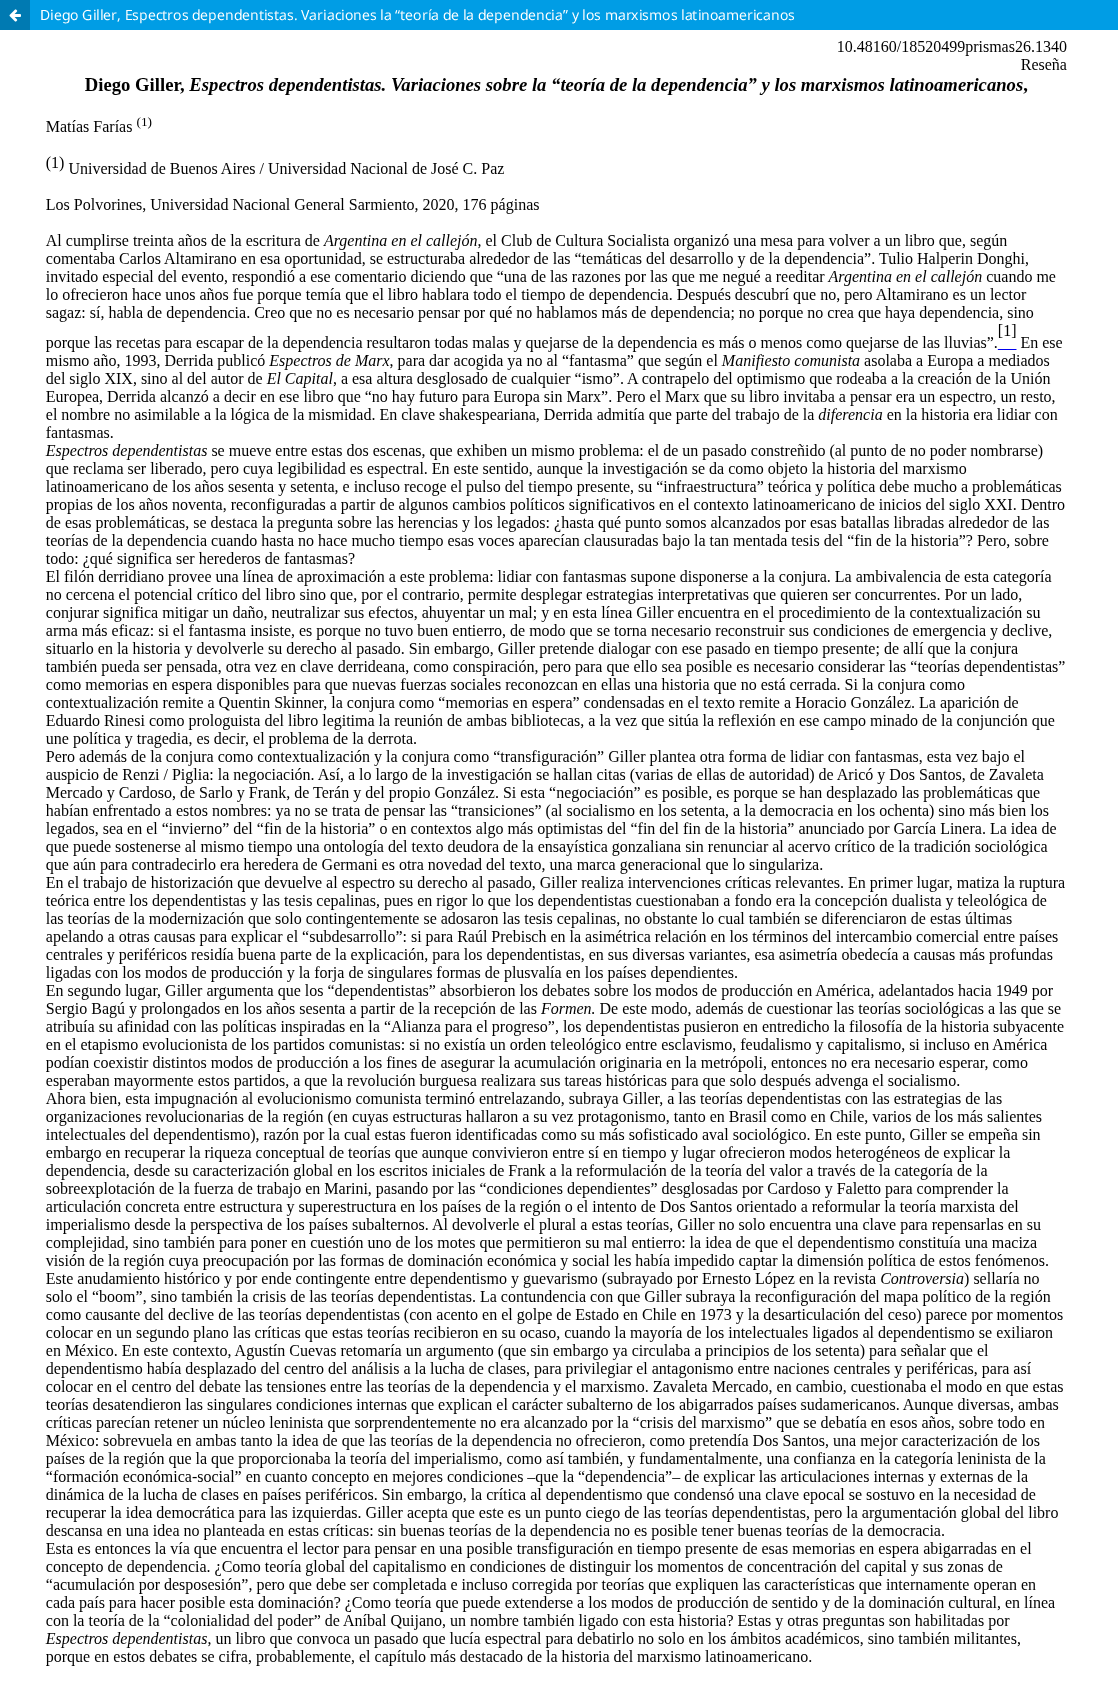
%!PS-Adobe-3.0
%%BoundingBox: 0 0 1118 1685
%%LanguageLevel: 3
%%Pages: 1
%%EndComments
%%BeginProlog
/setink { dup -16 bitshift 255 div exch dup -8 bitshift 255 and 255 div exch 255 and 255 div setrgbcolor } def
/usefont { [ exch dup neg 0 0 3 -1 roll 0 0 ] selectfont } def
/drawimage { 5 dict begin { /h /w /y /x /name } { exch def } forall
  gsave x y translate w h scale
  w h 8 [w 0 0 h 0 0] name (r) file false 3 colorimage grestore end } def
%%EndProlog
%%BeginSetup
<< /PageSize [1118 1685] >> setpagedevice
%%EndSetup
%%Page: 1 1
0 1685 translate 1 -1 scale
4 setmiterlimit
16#FFFFFF setink
0 0 1118 1685 rectfill
16#009DE5 setink
30 0 1088 30 rectfill
16#007AB2 setink
0 0 30 30 rectfill
(img1.raw) 9 9 12 13 drawimage
/NotoSans-Regular 14 usefont
16#FFFFFF setink
40 20 moveto (Diego Giller, Espectros dependentistas. Variaciones la “teoría de la dependencia” y los marxismos latinoamericanos) show
(img2.raw) 45 41 1022 1625 drawimage
showpage
%%EOF
